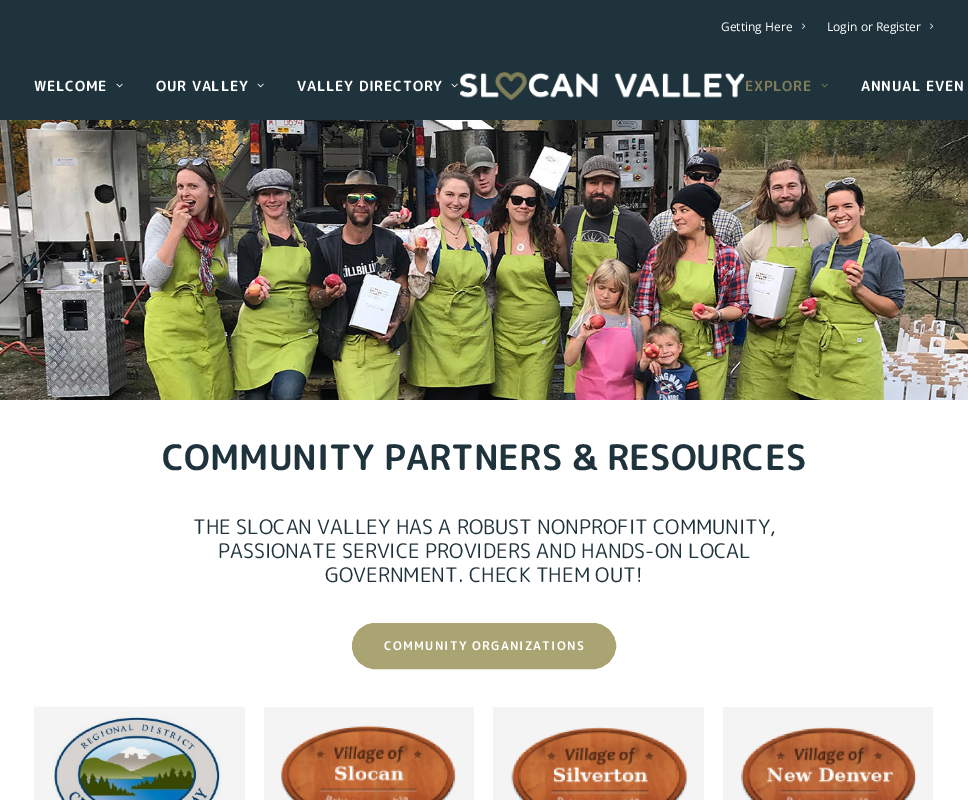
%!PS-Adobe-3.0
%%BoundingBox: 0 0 968 800
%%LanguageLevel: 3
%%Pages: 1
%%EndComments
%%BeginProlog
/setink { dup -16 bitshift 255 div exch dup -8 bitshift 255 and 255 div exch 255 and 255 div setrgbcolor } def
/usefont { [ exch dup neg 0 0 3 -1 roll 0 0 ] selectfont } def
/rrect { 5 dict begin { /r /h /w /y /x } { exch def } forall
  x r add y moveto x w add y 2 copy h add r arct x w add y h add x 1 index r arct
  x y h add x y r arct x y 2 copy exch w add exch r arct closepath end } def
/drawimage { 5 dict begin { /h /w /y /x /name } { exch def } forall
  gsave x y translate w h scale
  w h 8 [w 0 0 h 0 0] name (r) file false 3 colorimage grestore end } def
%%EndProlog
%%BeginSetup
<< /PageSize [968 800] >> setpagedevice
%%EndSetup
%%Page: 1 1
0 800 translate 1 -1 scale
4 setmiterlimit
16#FFFFFF setink
0 0 968 800 rectfill
16#1F333C setink
0 0 968 120 rectfill
/OpenSans-Regular 12 usefont
16#FFFFFF setink
721 31 moveto (Getting Here) show
(img1.raw) 802 23 4 6 drawimage
827 31 moveto (Login or Register) show
(img1.raw) 930 23 4 6 drawimage
/RoundedMplus1cBold-Bold 14 usefont
34 91 moveto 0.75 0 (WELCOME) ashow
(img2.raw) 116 83 7 5 drawimage
156 91 moveto 0.75 0 (OUR VALLEY) ashow
(img2.raw) 257 83 7 5 drawimage
297 91 moveto 0.75 0 (VALLEY DIRECTORY) ashow
(img2.raw) 451 83 7 5 drawimage
(img3.raw) 460 72 285 28 drawimage
16#817D58 setink
745 91 moveto 0.75 0 (EXPLORE) ashow
(img4.raw) 821 83 7 5 drawimage
16#FFFFFF setink
861 91 moveto 0.75 0 (ANNUAL EVEN) ashow
(img5.raw) 0 120 968 280 drawimage
/RoundedMplus1cBold-Bold 35 usefont
16#1F333C setink
162 470 moveto (COMMUNITY PARTNERS & RESOURCES) show
/RoundedMplus1c-Regular 20 usefont
[
    [(THE SLOCAN VALLEY HAS A ROBUST NONPROFIT COMMUNITY,) 193 534]
    [(PASSIONATE SERVICE PROVIDERS AND HANDS-ON LOCAL) 218 558]
    [(GOVERNMENT. CHECK THEM OUT!) 325 582]
] { aload pop moveto show } forall
16#AAA372 setink
352.5 623.5 263 45 22.5 rrect gsave fill grestore
stroke
/RoundedMplus1cBold-Bold 12 usefont
16#FFFFFF setink
384 650 moveto 1.2 0 (COMMUNITY ORGANIZATIONS) ashow
(img6.raw) 34 706 211 94 drawimage
(img7.raw) 264 707 210 93 drawimage
(img8.raw) 493 707 211 93 drawimage
(img9.raw) 723 707 210 93 drawimage
showpage
%%EOF
